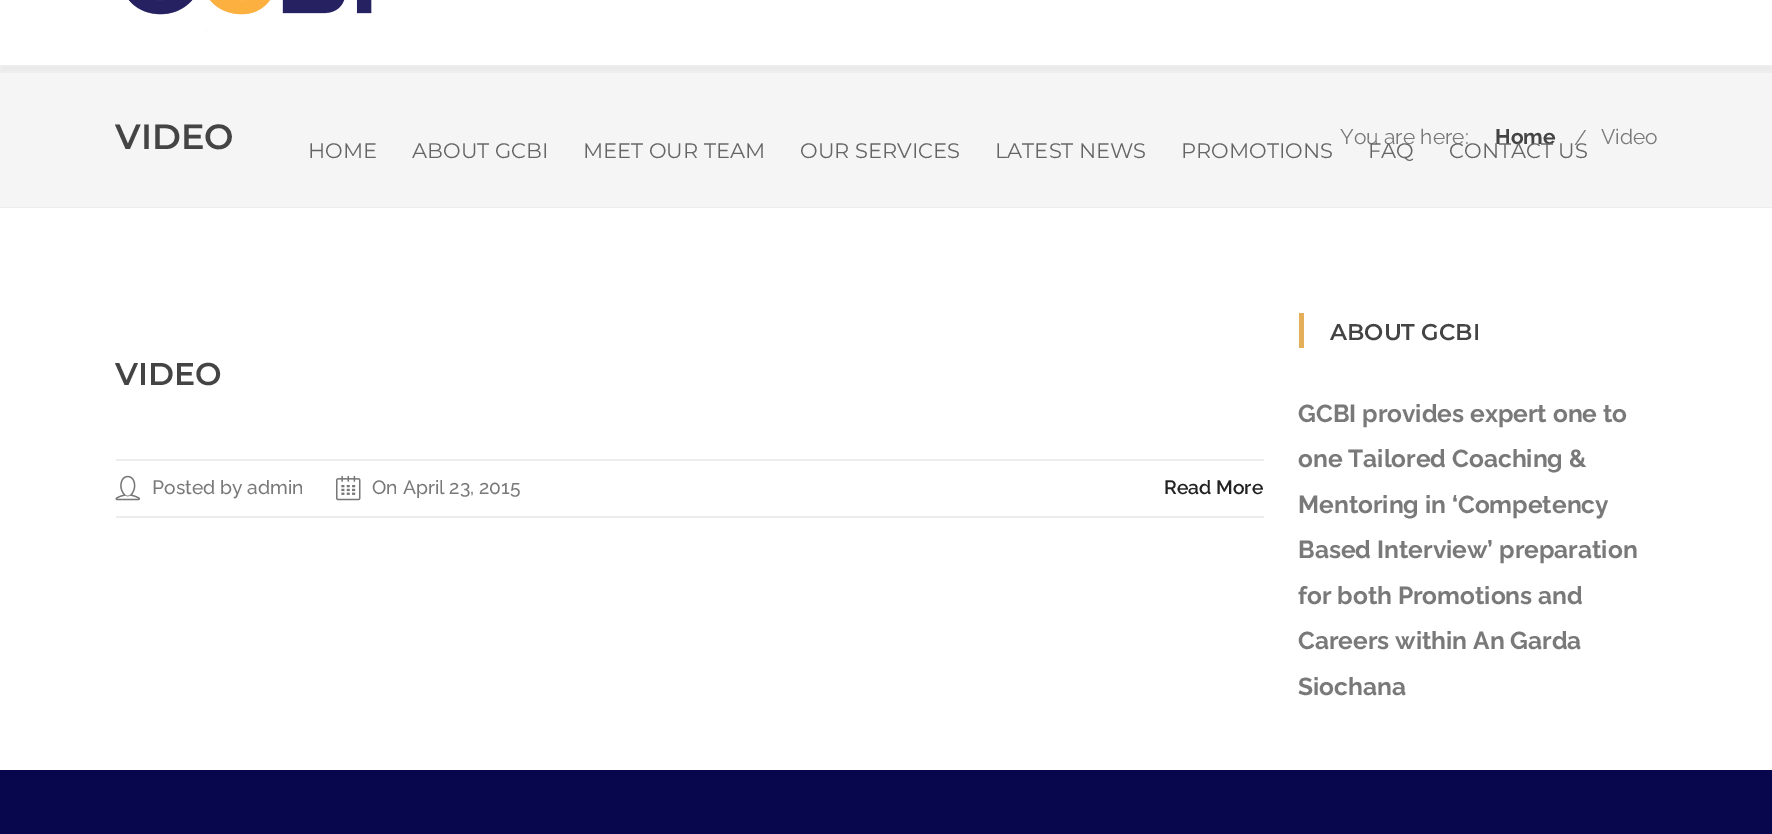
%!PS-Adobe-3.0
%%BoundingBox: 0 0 1772 834
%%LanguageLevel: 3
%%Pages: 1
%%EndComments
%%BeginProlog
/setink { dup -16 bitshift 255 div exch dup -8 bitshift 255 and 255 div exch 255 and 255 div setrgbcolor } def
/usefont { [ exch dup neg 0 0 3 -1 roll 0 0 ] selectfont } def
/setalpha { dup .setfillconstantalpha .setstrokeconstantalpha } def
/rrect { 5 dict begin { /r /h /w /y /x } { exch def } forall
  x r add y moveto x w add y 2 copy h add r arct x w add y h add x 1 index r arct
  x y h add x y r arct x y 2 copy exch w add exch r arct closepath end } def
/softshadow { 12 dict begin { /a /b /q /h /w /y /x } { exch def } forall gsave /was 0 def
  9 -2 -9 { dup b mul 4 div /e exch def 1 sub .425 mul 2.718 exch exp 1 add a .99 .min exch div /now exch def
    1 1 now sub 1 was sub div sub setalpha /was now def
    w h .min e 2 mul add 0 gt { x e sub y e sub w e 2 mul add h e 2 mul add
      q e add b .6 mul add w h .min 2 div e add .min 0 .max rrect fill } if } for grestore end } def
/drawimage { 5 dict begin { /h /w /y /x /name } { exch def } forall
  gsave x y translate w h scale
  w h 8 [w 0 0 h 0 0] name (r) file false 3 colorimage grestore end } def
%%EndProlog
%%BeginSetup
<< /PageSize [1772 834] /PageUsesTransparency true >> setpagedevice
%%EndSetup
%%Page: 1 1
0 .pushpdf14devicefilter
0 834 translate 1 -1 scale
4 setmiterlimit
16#FFFFFF setink
0 0 1772 834 rectfill
16#F5F5F5 setink
0 67 1772 140 rectfill
16#EDEDED setink
0 207 1772 1 rectfill
/Montserrat-SemiBold 35 usefont
16#444444 setink
115 149 moveto (VIDEO) show
/Raleway-Regular 21 usefont
16#797979 setink
1340 144 moveto (You are here:) show
/Raleway-Bold 21 usefont
16#444444 setink
1495 144 moveto (Home) show
/Raleway-Regular 21 usefont
16#797979 setink
1574 145 moveto (/) show
1601 144 moveto (Video) show
/Montserrat-SemiBold 31.5 usefont
16#444444 setink
115 385 moveto (VIDEO) show
16#EDEDED setink
116 459 1148 2 rectfill
116 516 1148 2 rectfill
(img1.raw) 115 475 25 26 drawimage
/Raleway-Medium 19.25 usefont
16#797979 setink
152 494 moveto (Posted by admin) show
(img2.raw) 336 475 25 26 drawimage
372 494 moveto (On April 23, 2015) show
/Raleway-SemiBold 19.25 usefont
16#222222 setink
1164 494 moveto (Read More) show
16#E5AF5A setink
1299 313 5 35 rectfill
/Montserrat-SemiBold 22.75 usefont
16#444444 setink
1330 340 moveto (ABOUT GCBI) show
/Raleway-Bold 24.5 usefont
16#797979 setink
[
    [(GCBI provides expert one to) 1298 422]
    [(one Tailored Coaching &) 1298 467]
    [(Mentoring in ‘Competency) 1298 513]
    [(Based Interview’ preparation) 1298 558]
    [(for both Promotions and) 1298 604]
    [(Careers within An Garda) 1298 649]
    [(Siochana) 1298 695]
] { aload pop moveto show } forall
gsave
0 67 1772 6 rectclip
16#000000 setink
0 -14 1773 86 0 4.5 0.05 softshadow
grestore
16#EDEDED setink
0 65 1772 2 rectfill
(img3.raw) 128 0 244 32 drawimage
/Montserrat-Regular 21 usefont
16#656565 setink
[
    [(HOME) 308 158]
    [(ABOUT GCBI) 412 158]
    [(MEET OUR TEAM) 583 158]
    [(OUR SERVICES) 800 158]
    [(LATEST NEWS) 995 158]
    [(PROMOTIONS) 1181 158]
    [(FAQ) 1368 158]
    [(CONTACT US) 1449 158]
] { aload pop moveto show } forall
16#08074D setink
0 770 1772 64 rectfill
.poppdf14devicefilter showpage
%%EOF
